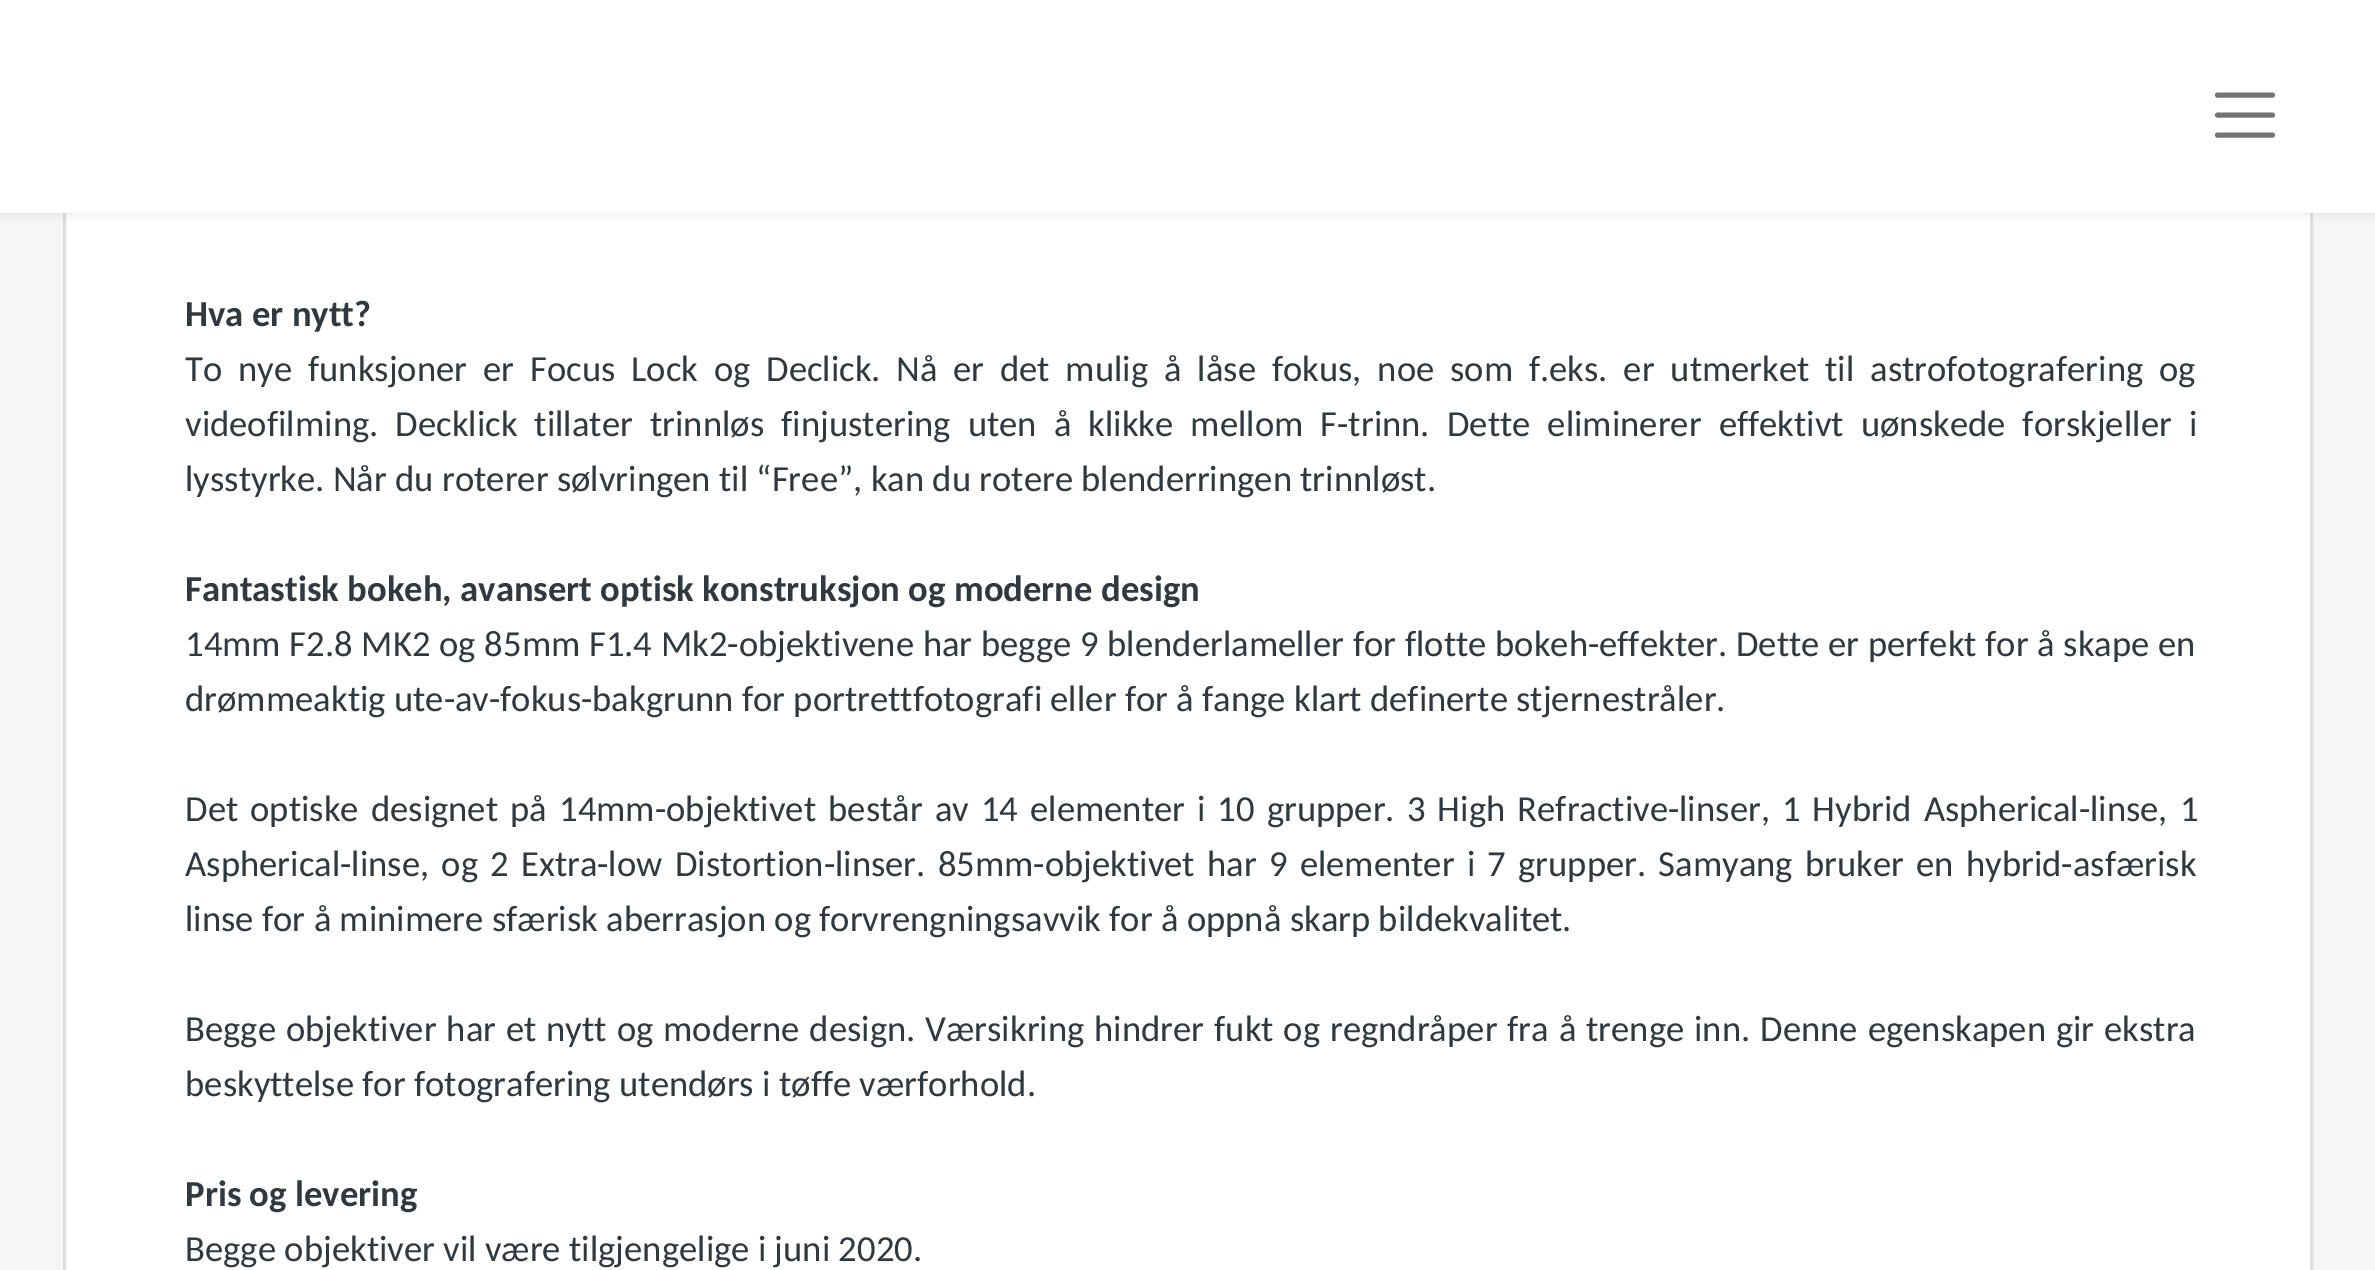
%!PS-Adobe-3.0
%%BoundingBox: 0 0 2375 1270
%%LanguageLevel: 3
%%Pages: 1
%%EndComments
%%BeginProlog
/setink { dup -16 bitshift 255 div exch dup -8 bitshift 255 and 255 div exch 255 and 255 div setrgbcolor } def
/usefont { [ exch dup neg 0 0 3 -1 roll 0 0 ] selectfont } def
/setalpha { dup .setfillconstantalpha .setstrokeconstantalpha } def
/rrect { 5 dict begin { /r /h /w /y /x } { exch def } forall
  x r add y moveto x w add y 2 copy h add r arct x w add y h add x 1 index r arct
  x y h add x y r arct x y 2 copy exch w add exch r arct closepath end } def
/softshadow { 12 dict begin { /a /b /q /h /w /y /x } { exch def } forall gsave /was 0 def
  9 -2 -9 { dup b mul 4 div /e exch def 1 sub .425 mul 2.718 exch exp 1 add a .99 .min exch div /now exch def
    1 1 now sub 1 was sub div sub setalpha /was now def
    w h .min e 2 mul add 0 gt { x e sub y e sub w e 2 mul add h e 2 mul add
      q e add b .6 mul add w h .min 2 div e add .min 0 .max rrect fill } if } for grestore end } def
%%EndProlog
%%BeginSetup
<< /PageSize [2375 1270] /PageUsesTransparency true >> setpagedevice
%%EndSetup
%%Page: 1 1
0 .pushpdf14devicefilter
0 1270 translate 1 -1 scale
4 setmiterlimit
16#F6F6F6 setink
0 0 2375 1270 rectfill
16#FFFFFF setink
66 213 2244 1057 rectfill
16#DEDEDE setink
3 setlinewidth
64.5 -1.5 2247 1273 rectstroke
16#000000 setink
0 0 2375 213 0 5 0.1 softshadow
16#FFFFFF setink
0 0 2375 213 rectfill
16#737373 setink
5 setlinewidth
1 setlinecap
2217.5 95 moveto 2272.5 95 lineto 2217.5 115 moveto 2272.5 115 lineto 2217.5 135 moveto 2272.5 135 lineto stroke
/Carlito-Bold 36.67 usefont
16#30393F setink
185 326 moveto (Hva er nytt?) show
/Carlito-Regular 36.67 usefont
185 381 moveto 7.5 0 32 (To nye funksjoner er) widthshow
[
    [(Focus) 530 381]
    [(Lock) 631 381]
    [(og) 714 381]
    [(Declick) 766 381]
] { aload pop moveto show } forall
871 381 moveto 7.5 0 32 (. Nå er det mulig å låse fokus, noe som f.eks. er utmerket til astrofotografering og) widthshow
185 436 moveto 8.75 0 32 (videofilming. Decklick tillater trinnløs finjustering uten å klikke mellom F-trinn. Dette eliminerer effektivt uønskede forskjeller i) widthshow
185 491 moveto (lysstyrke. Når du roterer sølvringen til “Free”, kan du rotere blenderringen trinnløst.) show
/Carlito-Bold 36.67 usefont
185 601 moveto (Fantastisk bokeh, avansert optisk konstruksjon og moderne design) show
/Carlito-Regular 36.67 usefont
185 656 moveto 0.4 0 32 (14mm F2.8 MK2 og 85mm F1.4 Mk2-objektivene har begge 9 blenderlameller for flotte bokeh-effekter. Dette er perfekt for å skape en) widthshow
185 711 moveto (drømmeaktig ute-av-fokus-bakgrunn for portrettfotografi eller for å fange klart definerte stjernestråler.) show
185 821 moveto 3.75 0 32 (Det optiske designet på 14mm-objektivet består av 14 elementer i 10 grupper. 3 High Refractive-linser, 1 Hybrid Aspherical-linse, 1) widthshow
185 876 moveto 3.9 0 32 (Aspherical-linse, og 2 Extra-low Distortion-linser. 85mm-objektivet har 9 elementer i 7 grupper. Samyang bruker en hybrid-asfærisk) widthshow
185 931 moveto (linse for å minimere sfærisk aberrasjon og forvrengningsavvik for å oppnå skarp bildekvalitet.) show
185 1041 moveto 1.6 0 32 (Begge objektiver har et nytt og moderne design. Værsikring hindrer fukt og regndråper fra å trenge inn. Denne egenskapen gir ekstra) widthshow
185 1096 moveto (beskyttelse for fotografering utendørs i tøffe værforhold.) show
/Carlito-Bold 36.67 usefont
185 1206 moveto (Pris og levering) show
/Carlito-Regular 36.67 usefont
185 1261 moveto (Begge objektiver vil være tilgjengelige i juni 2020.) show
.poppdf14devicefilter showpage
%%EOF
